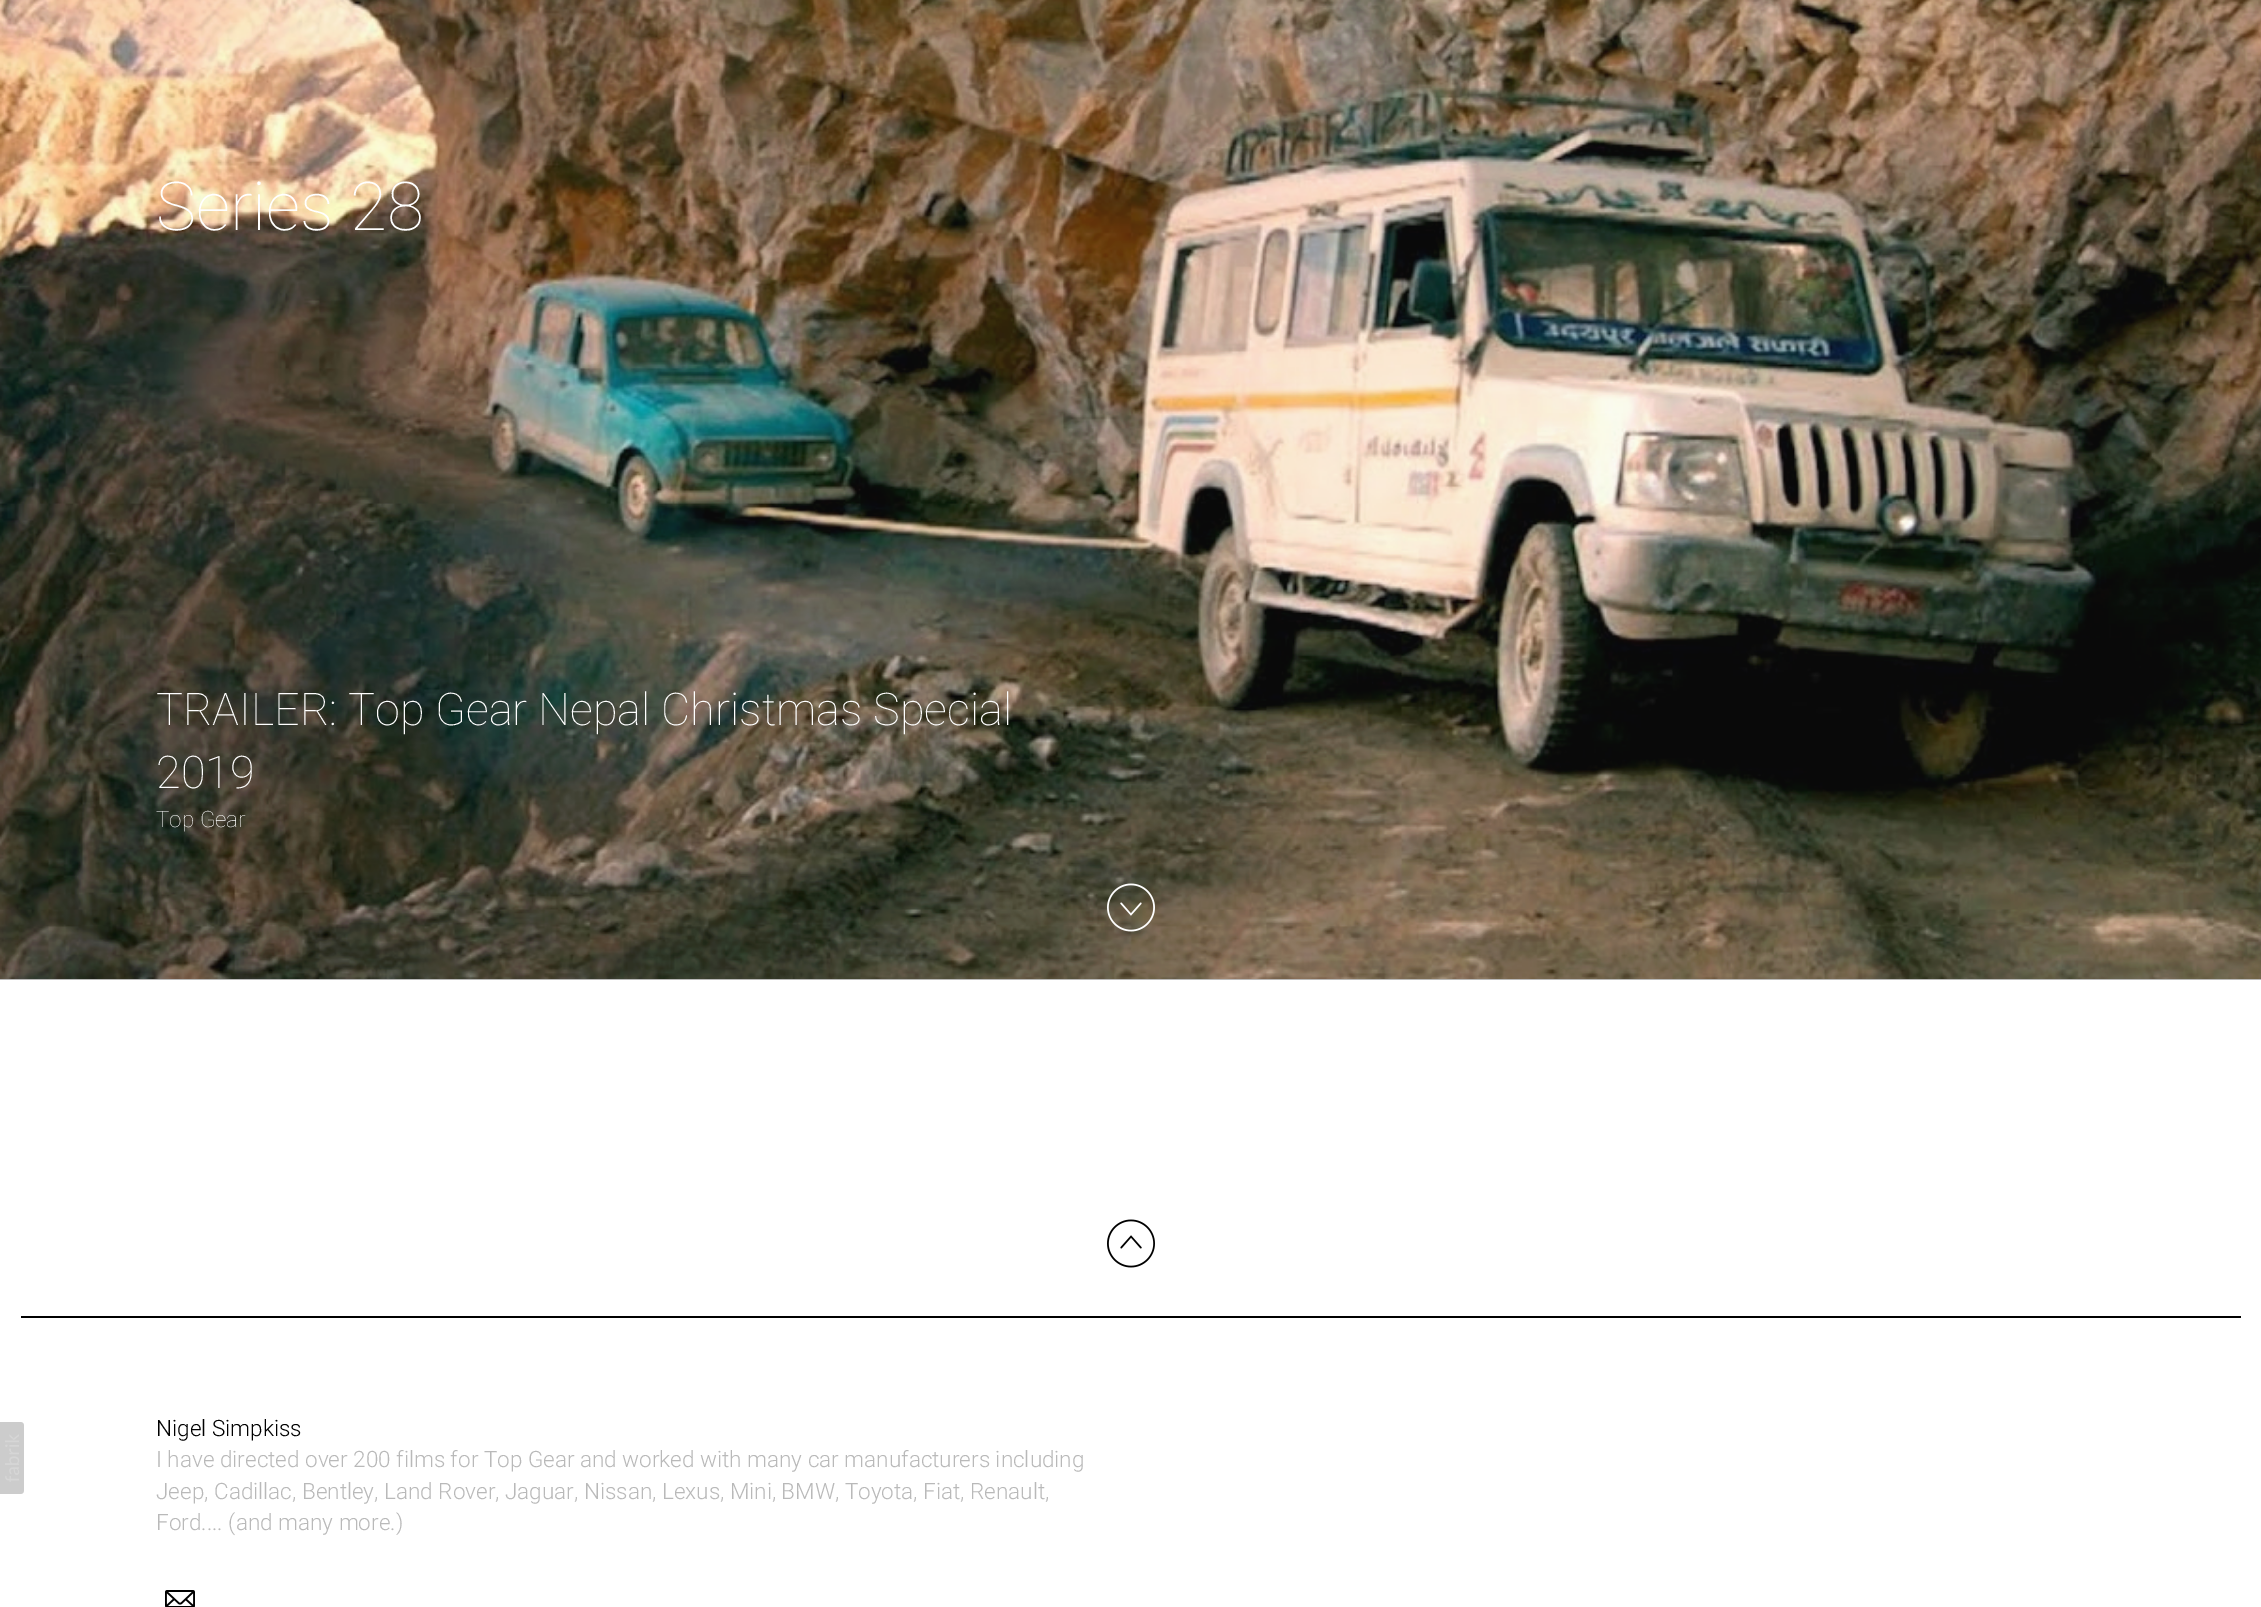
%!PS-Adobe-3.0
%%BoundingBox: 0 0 2261 1607
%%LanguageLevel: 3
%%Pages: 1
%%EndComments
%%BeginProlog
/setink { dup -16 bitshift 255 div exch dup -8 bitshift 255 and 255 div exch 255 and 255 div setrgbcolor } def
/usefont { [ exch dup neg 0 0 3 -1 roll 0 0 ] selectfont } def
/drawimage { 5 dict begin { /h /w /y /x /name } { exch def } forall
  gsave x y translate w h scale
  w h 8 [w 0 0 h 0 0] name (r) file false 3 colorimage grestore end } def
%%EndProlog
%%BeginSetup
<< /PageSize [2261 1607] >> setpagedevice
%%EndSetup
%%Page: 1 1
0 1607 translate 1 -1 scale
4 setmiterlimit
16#FFFFFF setink
0 0 2261 1607 rectfill
16#B9B9B9 setink
0 0 2261 980 rectfill
(img1.raw) 0 0 2261 979 drawimage
/Roboto-Thin 67.5 usefont
16#FFFFFF setink
156 230 moveto (Series 28) show
/Roboto-Thin 45 usefont
156 725 moveto (TRAILER: Top Gear Nepal Christmas Special) show
156 788 moveto (2019) show
/Roboto-Thin 22.5 usefont
156 827 moveto (Top Gear) show
(img2.raw) 1107 883 48 49 drawimage
16#000000 setink
21 1316 2220 2 rectfill
(img3.raw) 1107 1219 48 49 drawimage
(img4.raw) 0 1422 24 72 drawimage
/Roboto-Light 22.5 usefont
156 1436 moveto (Nigel Simpkiss) show
16#B9B9B9 setink
[
    [(I have directed over 200 films for Top Gear and worked with many car manufacturers including) 156 1467]
    [(Jeep, Cadillac, Bentley, Land Rover, Jaguar, Nissan, Lexus, Mini, BMW, Toyota, Fiat, Renault,) 156 1499]
    [(Ford.... \(and many more.\)) 156 1530]
] { aload pop moveto show } forall
(img5.raw) 165 1590 30 17 drawimage
showpage
%%EOF
